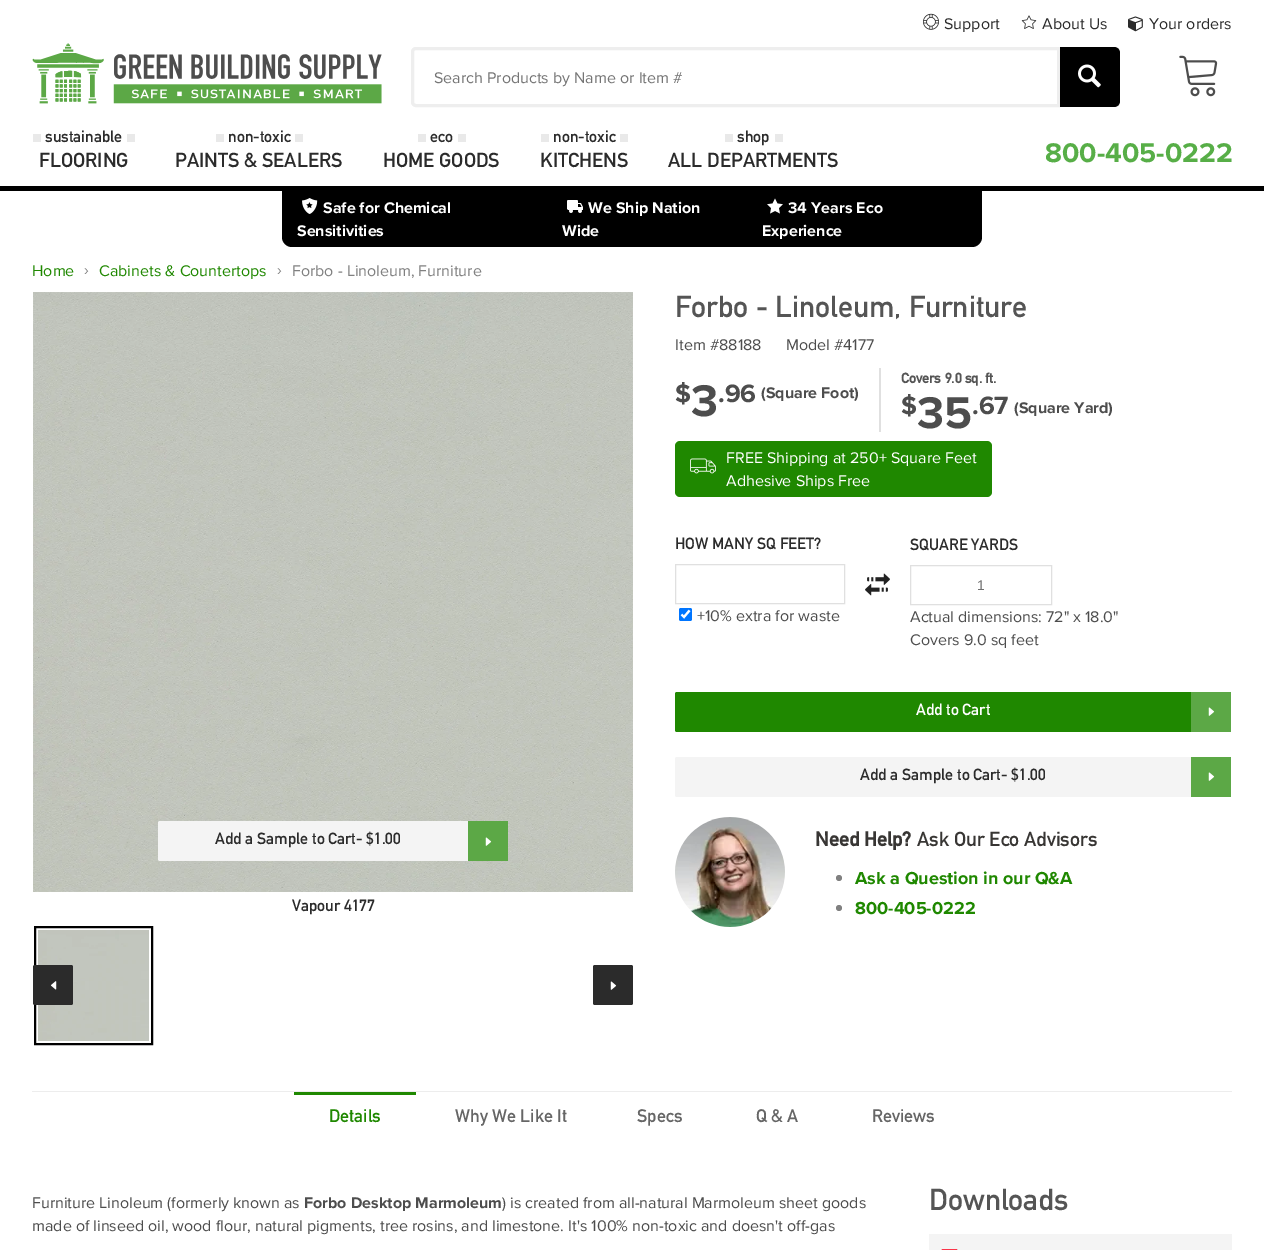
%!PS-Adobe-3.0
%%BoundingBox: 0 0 1264 1250
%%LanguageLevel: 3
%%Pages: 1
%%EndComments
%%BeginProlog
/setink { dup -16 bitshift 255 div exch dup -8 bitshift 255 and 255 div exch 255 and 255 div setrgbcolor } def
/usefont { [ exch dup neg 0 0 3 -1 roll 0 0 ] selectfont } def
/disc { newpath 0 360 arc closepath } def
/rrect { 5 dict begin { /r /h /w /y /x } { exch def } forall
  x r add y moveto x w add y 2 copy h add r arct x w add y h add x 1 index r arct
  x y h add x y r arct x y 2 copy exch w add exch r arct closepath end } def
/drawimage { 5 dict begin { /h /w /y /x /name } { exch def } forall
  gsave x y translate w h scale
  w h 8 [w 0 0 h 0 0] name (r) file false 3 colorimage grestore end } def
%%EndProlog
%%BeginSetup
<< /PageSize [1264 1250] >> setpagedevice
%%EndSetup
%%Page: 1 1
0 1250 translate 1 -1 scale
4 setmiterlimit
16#FFFFFF setink
0 0 1264 1250 rectfill
16#000000 setink
0 186 1264 5 rectfill
(img1.raw) 923 13 16 17 drawimage
/ProximaNova-Regular 16 usefont
16#2B2B2B setink
944 29 moveto (Support) show
(img2.raw) 1021 15 16 14 drawimage
1042 29 moveto (About Us) show
(img3.raw) 1128 16 15 16 drawimage
1149 29 moveto (Your orders) show
(img4.raw) 32 43 350 61 drawimage
16#EEEEEE setink
3 setlinewidth
416 48.5 moveto 1058.5 48.5 lineto 1058.5 105.5 lineto 416 105.5 lineto 414 105.5 412.5 104 412.5 102 curveto 412.5 52 lineto 412.5 50 414 48.5 416 48.5 curveto closepath stroke
16#757575 setink
434 83 moveto (Search Products by Name or Item #) show
16#000000 setink
1060 47 moveto 1114 47 lineto 1117.5 47 1120 49.5 1120 53 curveto 1120 101 lineto 1120 104.5 1117.5 107 1114 107 curveto 1060 107 lineto closepath fill
(img5.raw) 1078 64 23 24 drawimage
(img6.raw) 1179 55 39 42 drawimage
16#E9E9E9 setink
33 134 8 8 rectfill
/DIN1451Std-Regular 16 usefont
16#2B2B2B setink
45 142 moveto (sustainable) show
16#E9E9E9 setink
127 134 8 8 rectfill
/DIN1451Std-Regular 20 usefont
16#2B2B2B setink
39 167 moveto (FLOORING) show
16#E9E9E9 setink
216 134 8 8 rectfill
/DIN1451Std-Regular 16 usefont
16#2B2B2B setink
228 142 moveto (non-toxic) show
16#E9E9E9 setink
295 134 8 8 rectfill
/DIN1451Std-Regular 20 usefont
16#2B2B2B setink
175 167 moveto (PAINTS & SEALERS) show
16#E9E9E9 setink
418 134 8 8 rectfill
/DIN1451Std-Regular 16 usefont
16#2B2B2B setink
430 142 moveto (eco) show
16#E9E9E9 setink
458 134 8 8 rectfill
/DIN1451Std-Regular 20 usefont
16#2B2B2B setink
383 167 moveto (HOME GOODS) show
16#E9E9E9 setink
541 134 8 8 rectfill
/DIN1451Std-Regular 16 usefont
16#2B2B2B setink
553 142 moveto (non-toxic) show
16#E9E9E9 setink
620 134 8 8 rectfill
/DIN1451Std-Regular 20 usefont
16#2B2B2B setink
540 167 moveto (KITCHENS) show
16#E9E9E9 setink
725 134 8 8 rectfill
/DIN1451Std-Regular 16 usefont
16#2B2B2B setink
737 142 moveto (shop) show
16#E9E9E9 setink
775 134 8 8 rectfill
/DIN1451Std-Regular 20 usefont
16#2B2B2B setink
668 167 moveto (ALL DEPARTMENTS) show
/ProximaNova-Bold 28 usefont
16#57AE47 setink
1045 162 moveto (800-405-0222) show
16#000000 setink
282 191 moveto 982 191 lineto 982 237 lineto 982 242.5 977.5 247 972 247 curveto 292 247 lineto 286.5 247 282 242.5 282 237 curveto closepath fill
(img7.raw) 302 198 16 16 drawimage
/ProximaNova-Bold 16 usefont
16#FFFFFF setink
323 213 moveto (Safe for Chemical) show
297 236 moveto (Sensitivities) show
(img8.raw) 567 200 16 13 drawimage
588 213 moveto (We Ship Nation) show
562 236 moveto (Wide) show
(img9.raw) 767 198 16 16 drawimage
788 213 moveto (34 Years Eco) show
762 236 moveto (Experience) show
/ProximaNova-Regular 16 usefont
16#1F8800 setink
32 276 moveto (Home) show
16#808080 setink
84 275 moveto (›) show
16#1F8800 setink
99 276 moveto (Cabinets & Countertops) show
16#808080 setink
277 275 moveto (›) show
292 276 moveto (Forbo - Linoleum, Furniture) show
(img11.raw) 33 292 600 600 drawimage
16#F4F4F4 setink
158 821 350 40 2 rrect fill
/DIN1451Std-Regular 16 usefont
16#2B2B2B setink
215 844 moveto (Add a Sample to Cart- $1.00) show
16#5CA846 setink
468 821 40 40 rectfill
(img10.raw) 485 837 7 9 drawimage
16#2B2B2B setink
292 911 moveto (Vapour 4177) show
(img12.raw) 38 930 111 111 drawimage
16#000000 setink
2 setlinewidth
35 927 117 117 rectstroke
16#2B2B2B setink
33 965 40 40 2 rrect fill
(img13.raw) 50 981 7 9 drawimage
593 965 40 40 2 rrect fill
(img14.raw) 610 981 7 9 drawimage
/DIN1451Std-Regular 30 usefont
16#555555 setink
675 317 moveto (Forbo - Linoleum, Furniture) show
/ProximaNova-Regular 16 usefont
16#4D4D4D setink
675 350 moveto (Item #88188) show
786 350 moveto (Model #4177) show
/ProximaNova-Bold 26 usefont
675 402 moveto ($) show
/ProximaNova-Bold 46 usefont
691 416 moveto (3) show
/ProximaNova-Bold 26 usefont
718 402 moveto (.96) show
/ProximaNova-Bold 16 usefont
761 398 moveto (\(Square Foot\)) show
16#E0E0E0 setink
879 368 2 64 rectfill
/DIN1451Std-Bold 14 usefont
16#555555 setink
901 383 moveto (Covers 9.0 sq. ft.) show
/ProximaNova-Bold 26 usefont
16#4D4D4D setink
901 414 moveto ($) show
/ProximaNova-Bold 46 usefont
917 428 moveto (35) show
/ProximaNova-Bold 26 usefont
972 414 moveto (.67) show
/ProximaNova-Bold 16 usefont
1014 413 moveto (\(Square Yard\)) show
16#1F8800 setink
675 441 317 56 5 rrect fill
(img15.raw) 690 458 26 16 drawimage
/ProximaNova-Regular 16 usefont
16#FFFFFF setink
726 463 moveto (FREE Shipping at 250+ Square Feet) show
726 486 moveto (Adhesive Ships Free) show
/DIN1451Std-Regular 16 usefont
16#2B2B2B setink
675 549 moveto (HOW MANY SQ FEET?) show
16#E0E0E0 setink
1 setlinewidth
675.5 564.5 169 39 rectstroke
16#0075FF setink
679 608 13 13 2 rrect fill
16#FFFFFF setink
2.1 setlinewidth
681.5 614.5 moveto 684 617 lineto 689.5 610.5 lineto stroke
/ProximaNova-Regular 16 usefont
16#4D4D4D setink
697 621 moveto (+10% extra for waste) show
(img16.raw) 865 573 25 23 drawimage
/DIN1451Std-Regular 16 usefont
16#2B2B2B setink
910 550 moveto (SQUARE YARDS) show
16#E0E0E0 setink
1 setlinewidth
910.5 565.5 141 39 rectstroke
/LiberationSans-Regular 14 usefont
16#6F6F6F setink
977 590 moveto (1) show
/ProximaNova-Regular 16 usefont
16#4D4D4D setink
910 622 moveto (Actual dimensions: 72" x 18.0") show
910 645 moveto (Covers 9.0 sq feet) show
16#1F8800 setink
675 692 556 40 2 rrect fill
/DIN1451Std-Regular 16 usefont
16#FFFFFF setink
916 715 moveto (Add to Cart) show
16#5CA846 setink
1191 692 40 40 rectfill
(img10.raw) 1208 707 7 9 drawimage
16#F4F4F4 setink
675 757 556 40 2 rrect fill
16#2B2B2B setink
860 780 moveto (Add a Sample to Cart- $1.00) show
16#5CA846 setink
1191 757 40 40 rectfill
(img10.raw) 1208 772 7 9 drawimage
(img17.raw) 675 817 110 110 drawimage
/DIN1451Std-Bold 20 usefont
16#383634 setink
815 846 moveto (Need Help?) show
/DIN1451Std-Regular 20 usefont
917 846 moveto (Ask Our Eco Advisors) show
16#808080 setink
839 878 3 disc fill
/ProximaNova-Bold 18 usefont
16#1F8800 setink
855 884 moveto (Ask a Question in our Q&A) show
16#808080 setink
839 908 3 disc fill
16#1F8800 setink
855 914 moveto (800-405-0222) show
16#EDEDED setink
32 1091 1200 1 rectfill
16#1F8800 setink
294 1092 122 3 rectfill
/DIN1451Std-Regular 18 usefont
329 1122 moveto (Details) show
16#666666 setink
[
    [(Why We Like It) 455 1122]
    [(Specs) 637 1122]
    [(Q & A) 756 1122]
    [(Reviews) 872 1122]
] { aload pop moveto show } forall
/ProximaNova-Regular 16 usefont
16#4D4D4D setink
32 1208 moveto (Furniture Linoleum \(formerly known as) show
/ProximaNova-Bold 16 usefont
304 1208 moveto (Forbo Desktop Marmoleum) show
/ProximaNova-Regular 16 usefont
502 1208 moveto (\) is created from all-natural Marmoleum sheet goods) show
32 1231 moveto (made of linseed oil, wood flour, natural pigments, tree rosins, and limestone. It's 100% non-toxic and doesn't off-gas) show
/DIN1451Std-Regular 30 usefont
16#555555 setink
929 1210 moveto (Downloads) show
16#F4F4F4 setink
929 1234 303 16 rectfill
(img18.raw) 941 1249 17 1 drawimage
showpage
%%EOF
